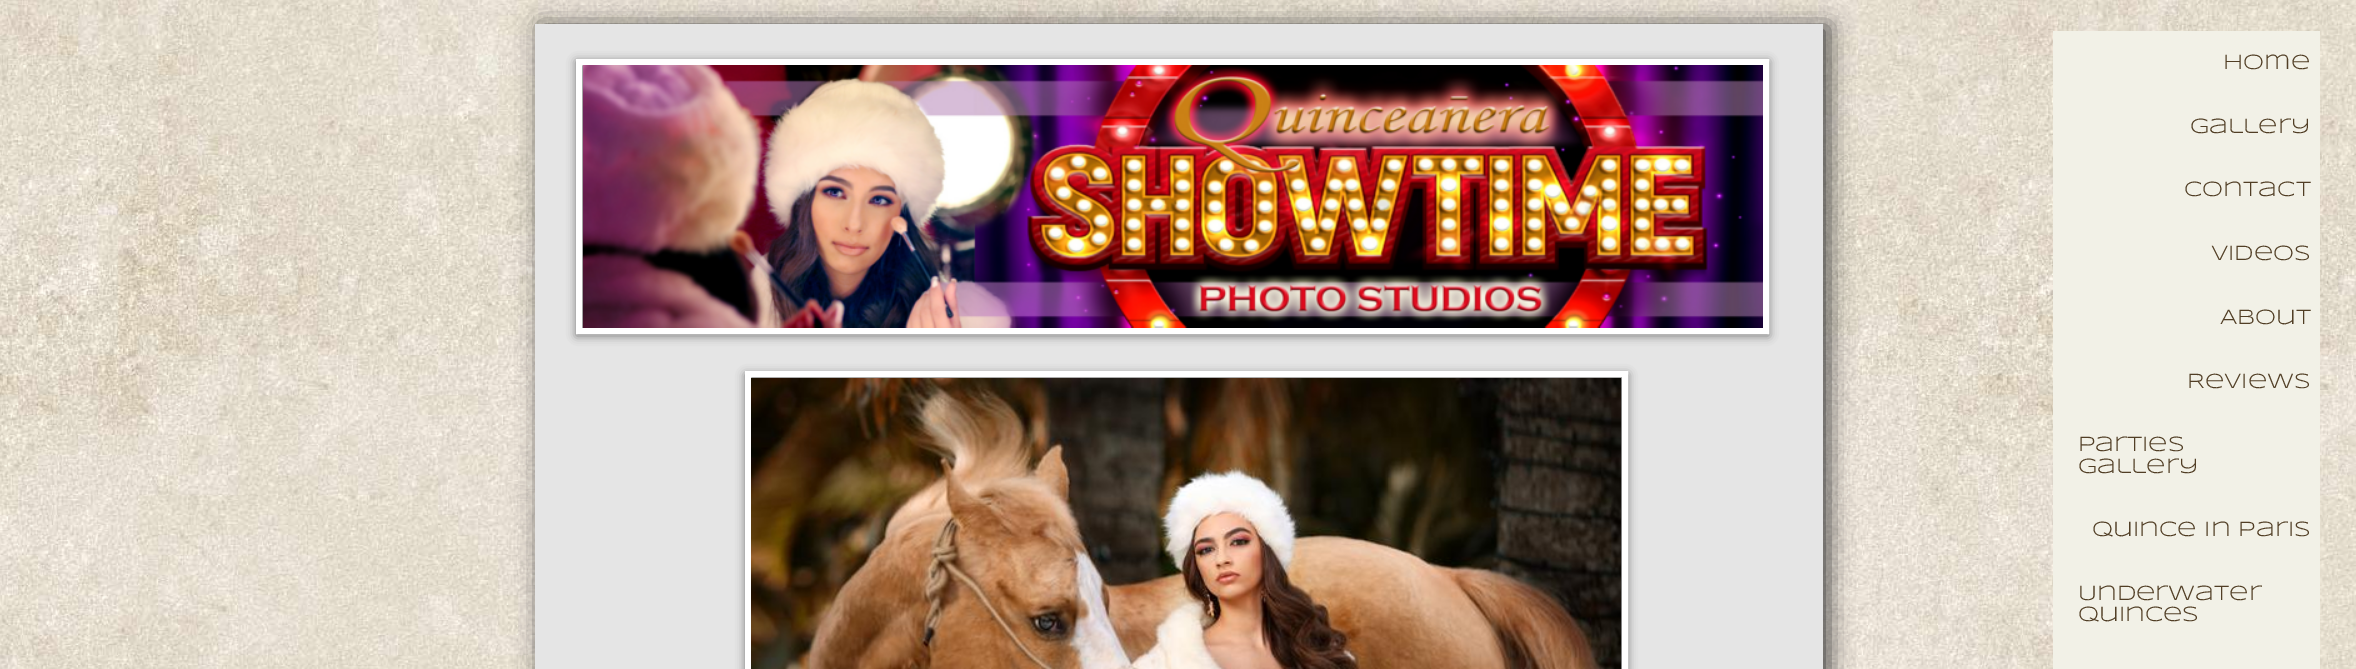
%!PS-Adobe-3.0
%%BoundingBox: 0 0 2356 669
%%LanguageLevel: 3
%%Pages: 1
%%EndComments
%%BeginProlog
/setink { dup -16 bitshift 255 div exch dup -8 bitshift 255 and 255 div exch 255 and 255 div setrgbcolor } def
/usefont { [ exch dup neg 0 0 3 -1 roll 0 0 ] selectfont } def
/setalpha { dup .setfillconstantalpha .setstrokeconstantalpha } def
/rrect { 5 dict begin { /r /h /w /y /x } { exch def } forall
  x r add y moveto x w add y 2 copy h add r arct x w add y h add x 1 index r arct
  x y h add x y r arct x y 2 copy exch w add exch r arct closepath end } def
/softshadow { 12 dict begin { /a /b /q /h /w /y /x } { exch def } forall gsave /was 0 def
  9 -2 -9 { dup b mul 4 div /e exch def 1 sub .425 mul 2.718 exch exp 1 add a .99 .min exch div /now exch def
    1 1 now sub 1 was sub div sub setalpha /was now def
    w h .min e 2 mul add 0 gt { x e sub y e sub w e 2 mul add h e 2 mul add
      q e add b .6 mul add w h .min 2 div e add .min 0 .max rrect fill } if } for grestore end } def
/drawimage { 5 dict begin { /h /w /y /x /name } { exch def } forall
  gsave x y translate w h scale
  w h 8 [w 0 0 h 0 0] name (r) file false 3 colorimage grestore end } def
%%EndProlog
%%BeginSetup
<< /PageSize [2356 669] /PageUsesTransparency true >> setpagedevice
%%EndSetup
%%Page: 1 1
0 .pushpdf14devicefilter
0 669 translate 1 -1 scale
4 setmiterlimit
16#FFFFFF setink
0 0 2356 669 rectfill
(img1.raw) 0 0 2356 669 drawimage
16#444444 setink
541 26 1288 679 0 12 1 softshadow
16#E5E5E5 setink
535 24 1288 645 rectfill
16#323232 setink
576 61 1193 275 0 4.5 0.6 softshadow
16#FFFFFF setink
6 setlinewidth
579 62 1187 269 rectstroke
(img2.raw) 583 65 1180 263 drawimage
16#F2F1E7 setink
2053 31 267 638 rectfill
/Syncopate-Regular 21.25 usefont
16#513E25 setink
[
    [(Home) 2223 69]
    [(Gallery) 2190 133]
    [(Contact) 2184 196]
    [(Videos) 2211 260]
    [(About) 2220 324]
    [(Reviews) 2187 388]
    [(Parties) 2078 451]
    [(Gallery) 2078 473]
    [(Quince in Paris) 2092 536]
    [(Underwater) 2078 600]
    [(Quinces) 2078 621]
] { aload pop moveto show } forall
16#323232 setink
745 374 883 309 0 4.5 0.6 softshadow
16#FFFFFF setink
748 374 877 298 rectstroke
(img3.raw) 751 378 870 291 drawimage
.poppdf14devicefilter showpage
%%EOF
